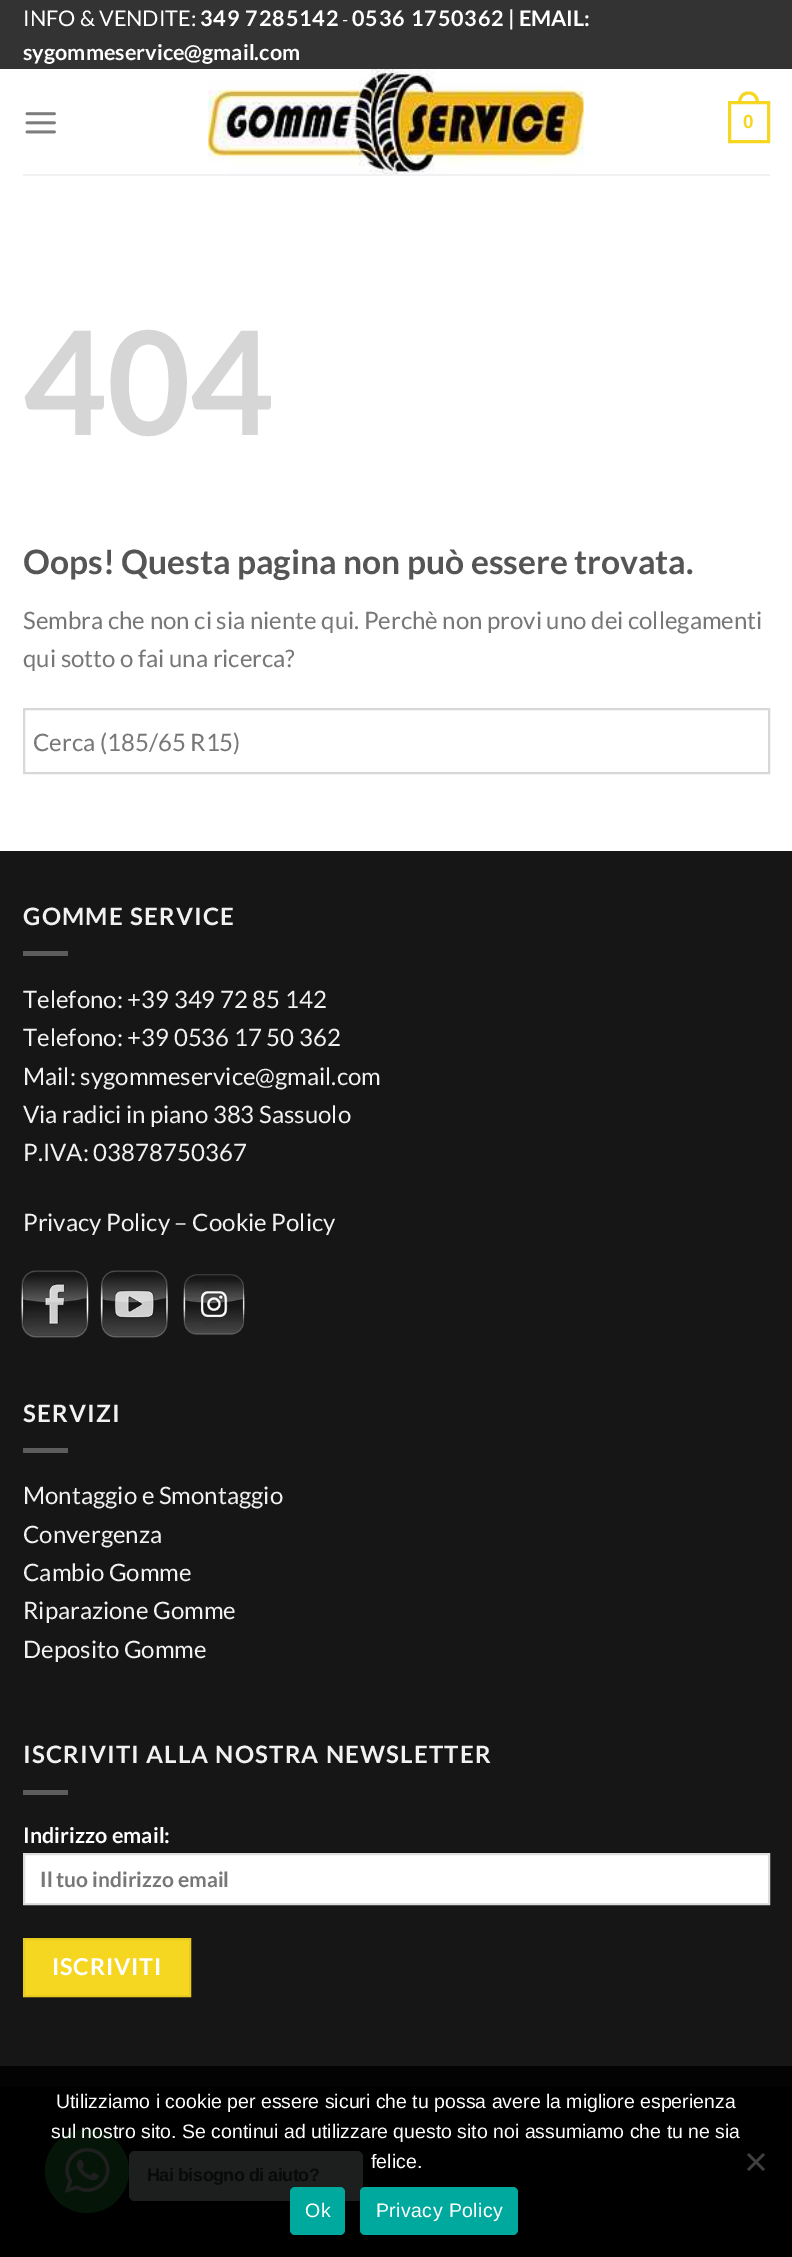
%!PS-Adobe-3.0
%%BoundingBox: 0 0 792 2257
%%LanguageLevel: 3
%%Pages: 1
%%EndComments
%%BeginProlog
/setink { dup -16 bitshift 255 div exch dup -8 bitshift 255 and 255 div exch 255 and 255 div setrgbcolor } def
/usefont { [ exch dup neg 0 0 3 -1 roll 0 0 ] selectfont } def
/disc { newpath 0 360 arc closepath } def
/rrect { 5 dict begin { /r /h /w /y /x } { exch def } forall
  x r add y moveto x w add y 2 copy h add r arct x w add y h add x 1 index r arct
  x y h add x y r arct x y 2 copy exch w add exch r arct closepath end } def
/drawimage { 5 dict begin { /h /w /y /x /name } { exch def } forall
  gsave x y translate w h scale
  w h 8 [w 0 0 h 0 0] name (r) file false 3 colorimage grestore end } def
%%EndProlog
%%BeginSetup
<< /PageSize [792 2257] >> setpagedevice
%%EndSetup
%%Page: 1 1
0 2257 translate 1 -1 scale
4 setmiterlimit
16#000000 setink
0 0 792 2257 rectfill
16#FFFFFF setink
0 69 792 782 rectfill
16#333333 setink
0 0 792 69 rectfill
/Lato-Regular 21.6 usefont
16#FFFFFF setink
23 26 moveto (INFO & VENDITE:) show
/Lato-Bold 21.6 usefont
200 26 moveto 0.9 0 (349 7285142) ashow
/Lato-Regular 18 usefont
342 26 moveto (-) show
/Lato-Bold 21.6 usefont
352 26 moveto 0.9 0 (0536 1750362) ashow
508 26 moveto (| EMAIL:) show
23 60 moveto (sygommeservice@gmail.com) show
(img1.raw) 25 112 31 22 drawimage
(img2.raw) 208 69 376 105 drawimage
16#F5D621 setink
3 setlinewidth
729.5 102.5 39 39 rectstroke
748.5 91.5 moveto 755.5 91.5 759 97 759 103.5 curveto 738 103.5 lineto 738 97 741.5 91.5 748.5 91.5 curveto closepath 748.5 94.5 moveto 754 94.5 756 99 756 103.5 curveto 741 103.5 lineto 741 99 743 94.5 748.5 94.5 curveto closepath eofill
/LiberationSans-Bold 19 usefont
743 128 moveto (0) show
16#F1F1F1 setink
23 174 747 2 rectfill
/Lato-Bold 144 usefont
16#D6D6D6 setink
23 435 moveto (404) show
/Lato-Bold 33.6 usefont
16#555555 setink
23 574 moveto (Oops! Questa pagina non può essere trovata.) show
/Lato-Regular 24 usefont
16#777777 setink
23 629 moveto (Sembra che non ci sia niente qui. Perchè non provi uno dei collegamenti) show
23 667 moveto (qui sotto o fai una ricerca?) show
16#D8D8D8 setink
2 setlinewidth
24 709 745 64 rectstroke
16#777777 setink
33 751 moveto (Cerca \(185/65 R15\)) show
16#161616 setink
0 851 792 1215 rectfill
16#030303 setink
0 2066 792 21 rectfill
/Lato-Bold 24 usefont
16#F1F1F1 setink
23 925 moveto 1.2 0 (GOMME SERVICE) ashow
16#5C5C5C setink
23 951 45 5 rectfill
/Lato-Regular 24 usefont
16#F1F1F1 setink
[
    [(Telefono: +39 349 72 85 142) 23 1008]
    [(Telefono: +39 0536 17 50 362) 23 1046]
    [(Mail: sygommeservice@gmail.com) 23 1085]
    [(Via radici in piano 383 Sassuolo) 23 1123]
    [(P.IVA: 03878750367) 23 1161]
    [(Privacy Policy – Cookie Policy) 23 1231]
] { aload pop moveto show } forall
(img3.raw) 21 1270 68 68 drawimage
(img4.raw) 100 1270 68 68 drawimage
(img5.raw) 183 1274 62 61 drawimage
/Lato-Bold 24 usefont
23 1422 moveto 1.2 0 (SERVIZI) ashow
16#5C5C5C setink
23 1448 45 5 rectfill
/Lato-Regular 24 usefont
16#F1F1F1 setink
[
    [(Montaggio e Smontaggio) 23 1504]
    [(Convergenza) 23 1543]
    [(Cambio Gomme) 23 1581]
    [(Riparazione Gomme) 23 1619]
    [(Deposito Gomme) 23 1658]
] { aload pop moveto show } forall
/Lato-Bold 24 usefont
23 1763 moveto 1.2 0 (ISCRIVITI ALLA NOSTRA NEWSLETTER) ashow
16#5C5C5C setink
23 1790 45 5 rectfill
/Lato-Bold 21.6 usefont
16#FFFFFF setink
23 1843 moveto (Indirizzo email:) show
24 1854 moveto 769 1854 lineto 769 1904 lineto 24 1904 lineto closepath gsave fill grestore
16#DDDDDD setink
stroke
/Lato-Bold 21 usefont
16#777777 setink
40 1887 moveto (Il tuo indirizzo email) show
16#F5D621 setink
24 1939 moveto 190 1939 lineto 190 1996 lineto 24 1996 lineto closepath gsave fill grestore
16#E9CB1F setink
stroke
/Lato-Bold 23.25 usefont
16#FFFFFF setink
52 1975 moveto 0.75 0 (ISCRIVITI) ashow
/LiberationSans-Regular 19.5 usefont
56 2108 moveto (Utilizziamo i cookie per essere sicuri che tu possa avere la migliore esperienza) show
16#051608 setink
87 2171 42 disc fill
16#FFFFFF setink
51 2138 moveto (sul nostro sito. Se continui ad utilizzare questo sito noi assumiamo che tu ne sia) show
371 2168 moveto (felice.) show
16#404040 setink
763 2153 moveto 765 2155 lineto 749 2171 lineto 747 2169 lineto closepath fill
747 2155 moveto 749 2153 lineto 765 2169 lineto 763 2171 lineto closepath fill
16#1D1E1E setink
129 2151 234 50 6 rrect fill
16#00A99D setink
290 2187 55 48 5 rrect fill
16#FFFFFF setink
305 2217 moveto 0.4 0 (Ok) ashow
16#00A99D setink
360 2187 158 48 5 rrect fill
16#FFFFFF setink
376 2217 moveto 0.4 0 (Privacy Policy) ashow
(img6.raw) 65 2148 45 45 drawimage
/LiberationSans-Bold 18 usefont
16#080909 setink
147 2181 moveto -0.5 0 (Hai bisogno di aiuto?) ashow
showpage
%%EOF
